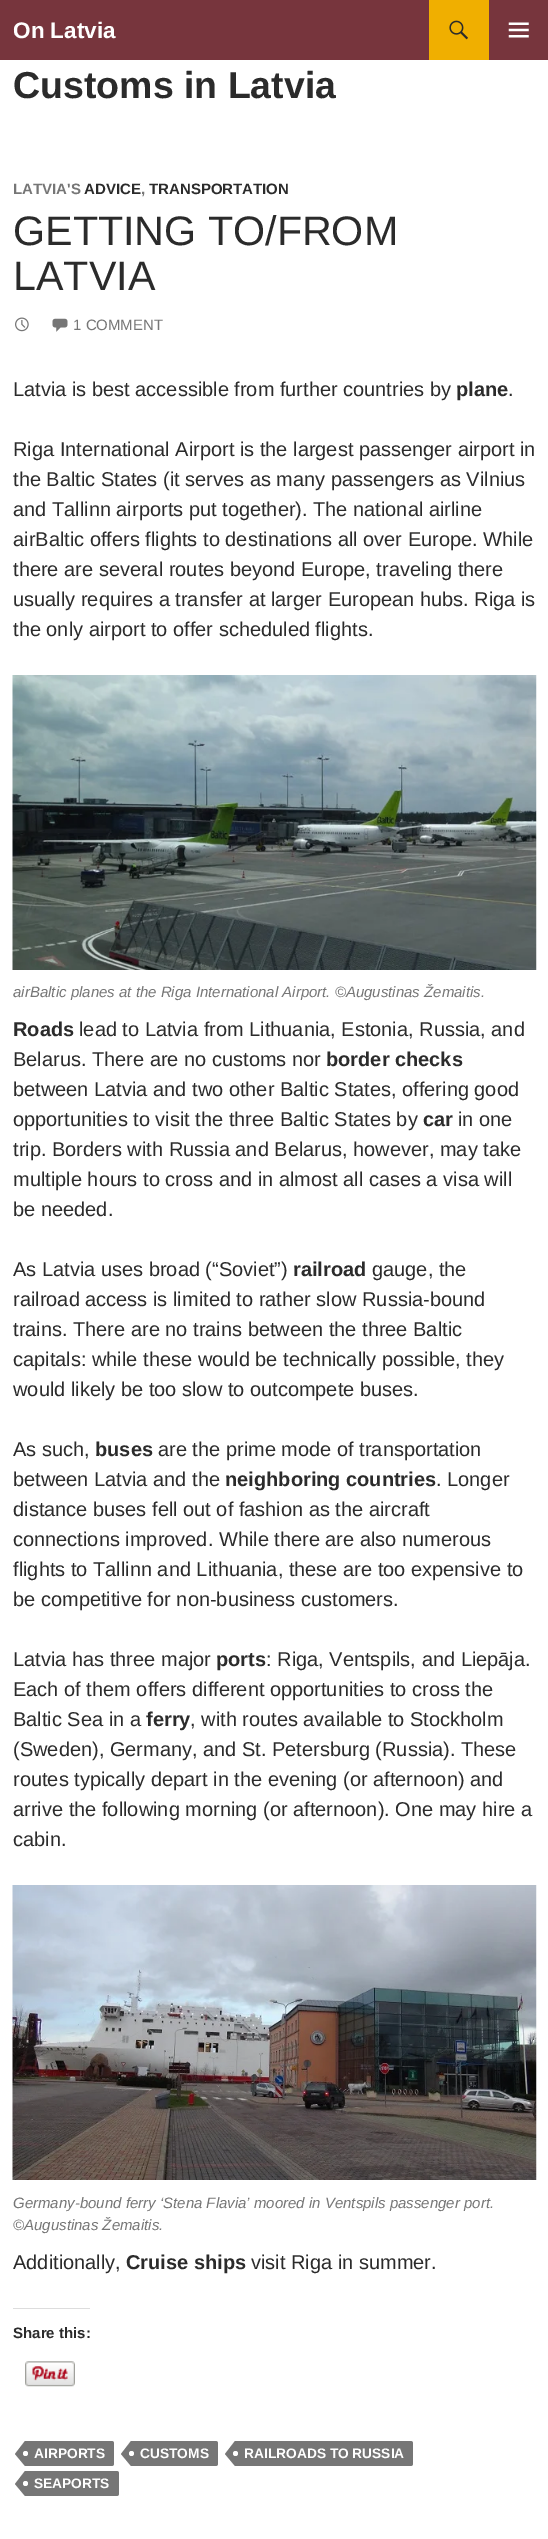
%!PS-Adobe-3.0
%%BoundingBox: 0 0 548 2539
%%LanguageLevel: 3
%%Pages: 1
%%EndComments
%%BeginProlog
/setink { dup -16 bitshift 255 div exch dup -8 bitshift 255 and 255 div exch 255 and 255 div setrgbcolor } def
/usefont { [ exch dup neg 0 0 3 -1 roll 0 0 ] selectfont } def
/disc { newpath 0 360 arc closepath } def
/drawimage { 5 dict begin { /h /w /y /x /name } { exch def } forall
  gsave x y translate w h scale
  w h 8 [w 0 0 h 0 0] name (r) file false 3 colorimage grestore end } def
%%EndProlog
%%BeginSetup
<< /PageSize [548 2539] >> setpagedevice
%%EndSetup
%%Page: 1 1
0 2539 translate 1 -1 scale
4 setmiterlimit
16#FFFFFF setink
0 0 548 2539 rectfill
16#77353D setink
0 0 548 60 rectfill
/LiberationSans-Bold 22.5 usefont
16#FFFFFF setink
13 38 moveto (On Latvia) show
16#F0AF00 setink
429 0 60 60 rectfill
(img1.raw) 449 20 19 20 drawimage
(img2.raw) 508 22 21 16 drawimage
/LiberationSans-Bold 37.5 usefont
16#2B2B2B setink
13 98 moveto (Customs in Latvia) show
/LiberationSans-Bold 15 usefont
16#767676 setink
13 194 moveto (LATVIA'S) show
16#2B2B2B setink
84 194 moveto (ADVICE) show
16#767676 setink
141 194 moveto (,) show
16#2B2B2B setink
149 194 moveto (TRANSPORTATION) show
/LiberationSans-Regular 41.25 usefont
13 245 moveto (GETTING TO/FROM) show
13 290 moveto (LATVIA) show
(img3.raw) 15 317 14 15 drawimage
(img4.raw) 52 318 16 14 drawimage
/LiberationSans-Regular 15 usefont
16#767676 setink
73 330 moveto (1 COMMENT) show
/LiberationSans-Regular 20 usefont
16#2B2B2B setink
13 396 moveto (Latvia is best accessible from further countries by) show
/LiberationSans-Bold 20 usefont
456 396 moveto (plane) show
/LiberationSans-Regular 20 usefont
[
    [(.) 508 396]
    [(Riga International Airport is the largest passenger airport in) 13 456]
    [(the Baltic States \(it serves as many passengers as Vilnius) 13 486]
    [(and Tallinn airports put together\). The national airline) 13 516]
    [(airBaltic offers flights to destinations all over Europe. While) 13 546]
    [(there are several routes beyond Europe, traveling there) 13 576]
    [(usually requires a transfer at larger European hubs. Riga is) 13 606]
    [(the only airport to offer scheduled flights.) 13 636]
] { aload pop moveto show } forall
(img5.raw) 12 675 525 295 drawimage
/LiberationSans-Italic 15 usefont
16#767676 setink
13 997 moveto (airBaltic planes at the Riga International Airport. ©Augustinas Žemaitis.) show
/LiberationSans-Bold 20 usefont
16#2B2B2B setink
13 1036 moveto (Roads) show
/LiberationSans-Regular 20 usefont
79 1036 moveto (lead to Latvia from Lithuania, Estonia, Russia, and) show
13 1066 moveto (Belarus. There are no customs nor) show
/LiberationSans-Bold 20 usefont
326 1066 moveto (border checks) show
/LiberationSans-Regular 20 usefont
13 1096 moveto (between Latvia and two other Baltic States, offering good) show
13 1126 moveto (opportunities to visit the three Baltic States by) show
/LiberationSans-Bold 20 usefont
423 1126 moveto (car) show
/LiberationSans-Regular 20 usefont
[
    [(in one) 458 1126]
    [(trip. Borders with Russia and Belarus, however, may take) 13 1156]
    [(multiple hours to cross and in almost all cases a visa will) 13 1186]
    [(be needed.) 13 1216]
    [(As Latvia uses broad \(“Soviet”\)) 13 1276]
] { aload pop moveto show } forall
/LiberationSans-Bold 20 usefont
293 1276 moveto (railroad) show
/LiberationSans-Regular 20 usefont
[
    [(gauge, the) 372 1276]
    [(railroad access is limited to rather slow Russia-bound) 13 1306]
    [(trains. There are no trains between the three Baltic) 13 1336]
    [(capitals: while these would be technically possible, they) 13 1366]
    [(would likely be too slow to outcompete buses.) 13 1396]
    [(As such,) 13 1456]
] { aload pop moveto show } forall
/LiberationSans-Bold 20 usefont
95 1456 moveto (buses) show
/LiberationSans-Regular 20 usefont
158 1456 moveto (are the prime mode of transportation) show
13 1486 moveto (between Latvia and the) show
/LiberationSans-Bold 20 usefont
225 1486 moveto (neighboring countries) show
/LiberationSans-Regular 20 usefont
[
    [(. Longer) 436 1486]
    [(distance buses fell out of fashion as the aircraft) 13 1516]
    [(connections improved. While there are also numerous) 13 1546]
    [(flights to Tallinn and Lithuania, these are too expensive to) 13 1576]
    [(be competitive for non-business customers.) 13 1606]
    [(Latvia has three major) 13 1666]
] { aload pop moveto show } forall
/LiberationSans-Bold 20 usefont
216 1666 moveto (ports) show
/LiberationSans-Regular 20 usefont
[
    [(: Riga, Ventspils, and Liepāja.) 266 1666]
    [(Each of them offers different opportunities to cross the) 13 1696]
    [(Baltic Sea in a) 13 1726]
] { aload pop moveto show } forall
/LiberationSans-Bold 20 usefont
146 1726 moveto (ferry) show
/LiberationSans-Regular 20 usefont
[
    [(, with routes available to Stockholm) 190 1726]
    [(\(Sweden\), Germany, and St. Petersburg \(Russia\). These) 13 1756]
    [(routes typically depart in the evening \(or afternoon\) and) 13 1786]
    [(arrive the following morning \(or afternoon\). One may hire a) 13 1816]
    [(cabin.) 13 1846]
] { aload pop moveto show } forall
(img6.raw) 12 1885 525 295 drawimage
/LiberationSans-Italic 15 usefont
16#767676 setink
13 2208 moveto (Germany-bound ferry ‘Stena Flavia’ moored in Ventspils passenger port.) show
13 2230 moveto (©Augustinas Žemaitis.) show
/LiberationSans-Regular 20 usefont
16#2B2B2B setink
13 2269 moveto (Additionally,) show
/LiberationSans-Bold 20 usefont
126 2269 moveto (Cruise ships) show
/LiberationSans-Regular 20 usefont
251 2269 moveto (visit Riga in summer.) show
16#DDDDDD setink
13 2308 77 1 rectfill
/LiberationSans-Bold 15 usefont
16#2B2B2B setink
13 2338 moveto (Share this:) show
(img7.raw) 25 2361 50 26 drawimage
16#767676 setink
25 2441 moveto 111.5 2441 lineto 113 2441 114 2442 114 2443.5 curveto 114 2463.5 lineto 114 2465 113 2466 111.5 2466 curveto 25 2466 lineto closepath fill
25 2441 moveto 25 2466 lineto 15 2454 lineto closepath fill
16#FFFFFF setink
25.5 2453.5 2.5 disc fill
/LiberationSans-Bold 13.75 usefont
34 2458 moveto (AIRPORTS) show
16#767676 setink
131 2441 moveto 215.5 2441 lineto 217 2441 218 2442 218 2443.5 curveto 218 2463.5 lineto 218 2465 217 2466 215.5 2466 curveto 131 2466 lineto closepath fill
131 2441 moveto 131 2466 lineto 121 2454 lineto closepath fill
16#FFFFFF setink
131.5 2453.5 2.5 disc fill
140 2458 moveto (CUSTOMS) show
16#767676 setink
235 2441 moveto 410.5 2441 lineto 412 2441 413 2442 413 2443.5 curveto 413 2463.5 lineto 413 2465 412 2466 410.5 2466 curveto 235 2466 lineto closepath fill
235 2441 moveto 235 2466 lineto 225 2454 lineto closepath fill
16#FFFFFF setink
235.5 2453.5 2.5 disc fill
244 2458 moveto (RAILROADS TO RUSSIA) show
16#767676 setink
25 2471 moveto 116.5 2471 lineto 118 2471 119 2472 119 2473.5 curveto 119 2493.5 lineto 119 2495 118 2496 116.5 2496 curveto 25 2496 lineto closepath fill
25 2471 moveto 25 2496 lineto 15 2484 lineto closepath fill
16#FFFFFF setink
25.5 2483.5 2.5 disc fill
34 2488 moveto (SEAPORTS) show
showpage
%%EOF
